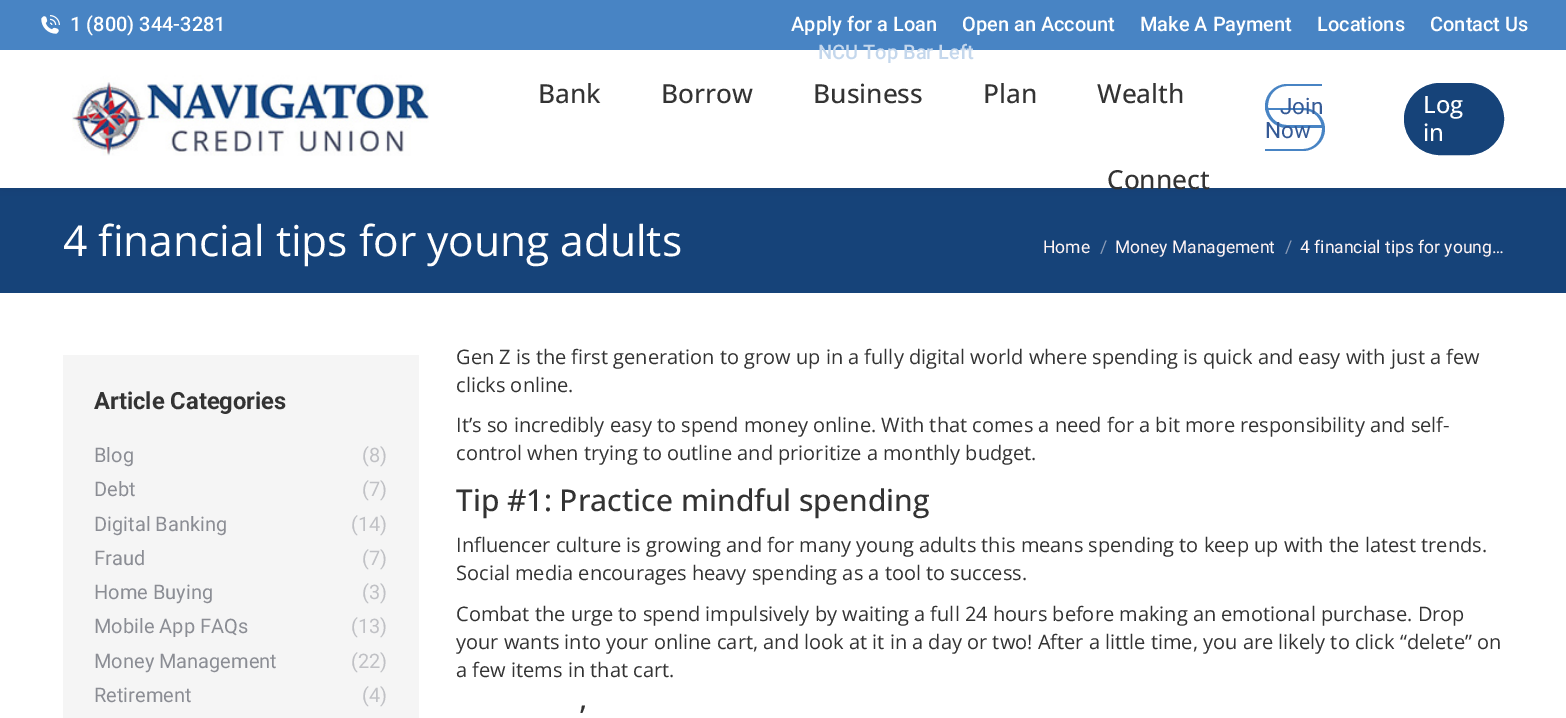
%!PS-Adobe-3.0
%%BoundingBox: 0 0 1566 718
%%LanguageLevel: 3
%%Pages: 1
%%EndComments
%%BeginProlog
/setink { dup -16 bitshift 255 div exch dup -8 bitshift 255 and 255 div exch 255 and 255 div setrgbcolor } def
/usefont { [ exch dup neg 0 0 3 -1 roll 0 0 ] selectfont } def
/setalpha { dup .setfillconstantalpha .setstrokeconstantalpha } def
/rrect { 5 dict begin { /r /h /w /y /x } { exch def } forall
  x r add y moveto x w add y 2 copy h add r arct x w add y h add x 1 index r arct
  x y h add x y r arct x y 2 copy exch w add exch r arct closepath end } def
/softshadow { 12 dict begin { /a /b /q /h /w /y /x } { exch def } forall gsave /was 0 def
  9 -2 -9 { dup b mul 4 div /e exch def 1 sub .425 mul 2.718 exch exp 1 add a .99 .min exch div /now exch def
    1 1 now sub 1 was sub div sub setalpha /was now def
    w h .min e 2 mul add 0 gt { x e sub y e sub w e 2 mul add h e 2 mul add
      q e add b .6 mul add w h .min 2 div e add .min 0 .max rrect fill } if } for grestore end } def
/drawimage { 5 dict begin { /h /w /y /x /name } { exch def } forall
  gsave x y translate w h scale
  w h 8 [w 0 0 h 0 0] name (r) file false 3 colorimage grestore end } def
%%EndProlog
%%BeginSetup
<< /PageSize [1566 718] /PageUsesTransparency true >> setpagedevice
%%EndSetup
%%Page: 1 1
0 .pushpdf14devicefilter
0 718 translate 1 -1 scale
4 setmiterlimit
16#FFFFFF setink
0 0 1566 718 rectfill
16#164379 setink
0 188 1566 105 rectfill
16#000000 setink
-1 -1 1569 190 0 9.5 0.07 softshadow
16#FFFFFF setink
0 50 1566 138 rectfill
16#4884C4 setink
0 0 1566 50 rectfill
(img1.raw) 41 15 19 19 drawimage
/Roboto-Medium 20 usefont
16#FFFFFF setink
[
    [(1 \(800\) 344-3281) 70 31]
    [(Apply for a Loan) 791 31]
    [(Open an Account) 962 31]
    [(Make A Payment) 1140 31]
    [(Locations) 1317 31]
    [(Contact Us) 1430 31]
] { aload pop moveto show } forall
16#C4D7EC setink
818 59 moveto (NCU Top Bar Left) show
(img2.raw) 72 75 357 81 drawimage
/OpenSans-Medium 26.25 usefont
16#333333 setink
[
    [(Bank) 538 103]
    [(Borrow) 661 103]
    [(Business) 813 103]
    [(Plan) 983 103]
    [(Wealth) 1097 103]
    [(Connect) 1107 189]
] { aload pop moveto show } forall
16#4884C4 setink
1287 84 moveto 1322 84 lineto 1322 128 lineto 1287 128 lineto 1275 128 1265 118 1265 106 curveto 1265 94 1275 84 1287 84 curveto closepath 1287 86 moveto 1322 86 lineto 1322 125 lineto 1287 125 lineto 1276 125 1268 116 1268 106 curveto 1268 95 1276 86 1287 86 curveto closepath eofill
1265 108 moveto 1303 108 lineto 1315 108 1325 117 1325 129 curveto 1325 141 1315 151 1303 151 curveto 1265 151 lineto closepath 1265 110 moveto 1303 110 lineto 1314 110 1322 119 1322 129 curveto 1322 140 1314 149 1303 149 curveto 1265 149 lineto closepath eofill
/Roboto-Regular 22.5 usefont
16#355A96 setink
1280 114 moveto (Join) show
1265 138 moveto (Now) show
16#164379 setink
1404.5 83.5 99 71 35.5 rrect gsave fill grestore
stroke
/OpenSans-Medium 23.75 usefont
16#FFFFFF setink
1423 113 moveto (Log) show
1423 141 moveto (in) show
/OpenSans-Regular 42.5 usefont
63 256 moveto (4 financial tips for young adults) show
/Roboto-Regular 17.5 usefont
16#FFF4F4 setink
1043 253 moveto (Home) show
16#8B9CB7 setink
1100 253 moveto (/) show
16#FFF4F4 setink
1115 253 moveto (Money Management) show
16#8B9CB7 setink
1285 253 moveto (/) show
16#FFF4F4 setink
1300 253 moveto (4 financial tips for young…) show
16#F5F5F5 setink
63 355 356 363 rectfill
/Roboto-Bold 23.75 usefont
16#333333 setink
94 409 moveto (Article Categories) show
/Roboto-Regular 20 usefont
16#8B8D94 setink
94 462 moveto (Blog) show
16#C0C1C5 setink
362 462 moveto (\(8\)) show
16#8B8D94 setink
94 496 moveto (Debt) show
16#C0C1C5 setink
362 496 moveto (\(7\)) show
16#8B8D94 setink
94 531 moveto (Digital Banking) show
16#C0C1C5 setink
351 531 moveto (\(14\)) show
16#8B8D94 setink
94 565 moveto (Fraud) show
16#C0C1C5 setink
362 565 moveto (\(7\)) show
16#8B8D94 setink
94 599 moveto (Home Buying) show
16#C0C1C5 setink
362 599 moveto (\(3\)) show
16#8B8D94 setink
94 633 moveto (Mobile App FAQs) show
16#C0C1C5 setink
351 633 moveto (\(13\)) show
16#8B8D94 setink
94 668 moveto (Money Management) show
16#C0C1C5 setink
351 668 moveto (\(22\)) show
16#8B8D94 setink
94 702 moveto (Retirement) show
16#C0C1C5 setink
362 702 moveto (\(4\)) show
/OpenSans-Regular 20 usefont
16#333333 setink
[
    [(Gen Z is the first generation to grow up in a fully digital world where spending is quick and easy with just a few) 456 364]
    [(clicks online.) 456 392]
    [(It’s so incredibly easy to spend money online. With that comes a need for a bit more responsibility and self-) 456 432]
    [(control when trying to outline and prioritize a monthly budget.) 456 460]
] { aload pop moveto show } forall
/OpenSans-Medium 30 usefont
456 511 moveto (Tip #1: Practice mindful spending) show
/OpenSans-Regular 20 usefont
[
    [(Influencer culture is growing and for many young adults this means spending to keep up with the latest trends.) 456 552]
    [(Social media encourages heavy spending as a tool to success.) 456 580]
    [(Combat the urge to spend impulsively by waiting a full 24 hours before making an emotional purchase. Drop) 456 621]
    [(your wants into your online cart, and look at it in a day or two! After a little time, you are likely to click “delete” on) 456 649]
    [(a few items in that cart.) 456 677]
] { aload pop moveto show } forall
/OpenSans-Medium 30 usefont
580 727 moveto (’) show
.poppdf14devicefilter showpage
%%EOF
